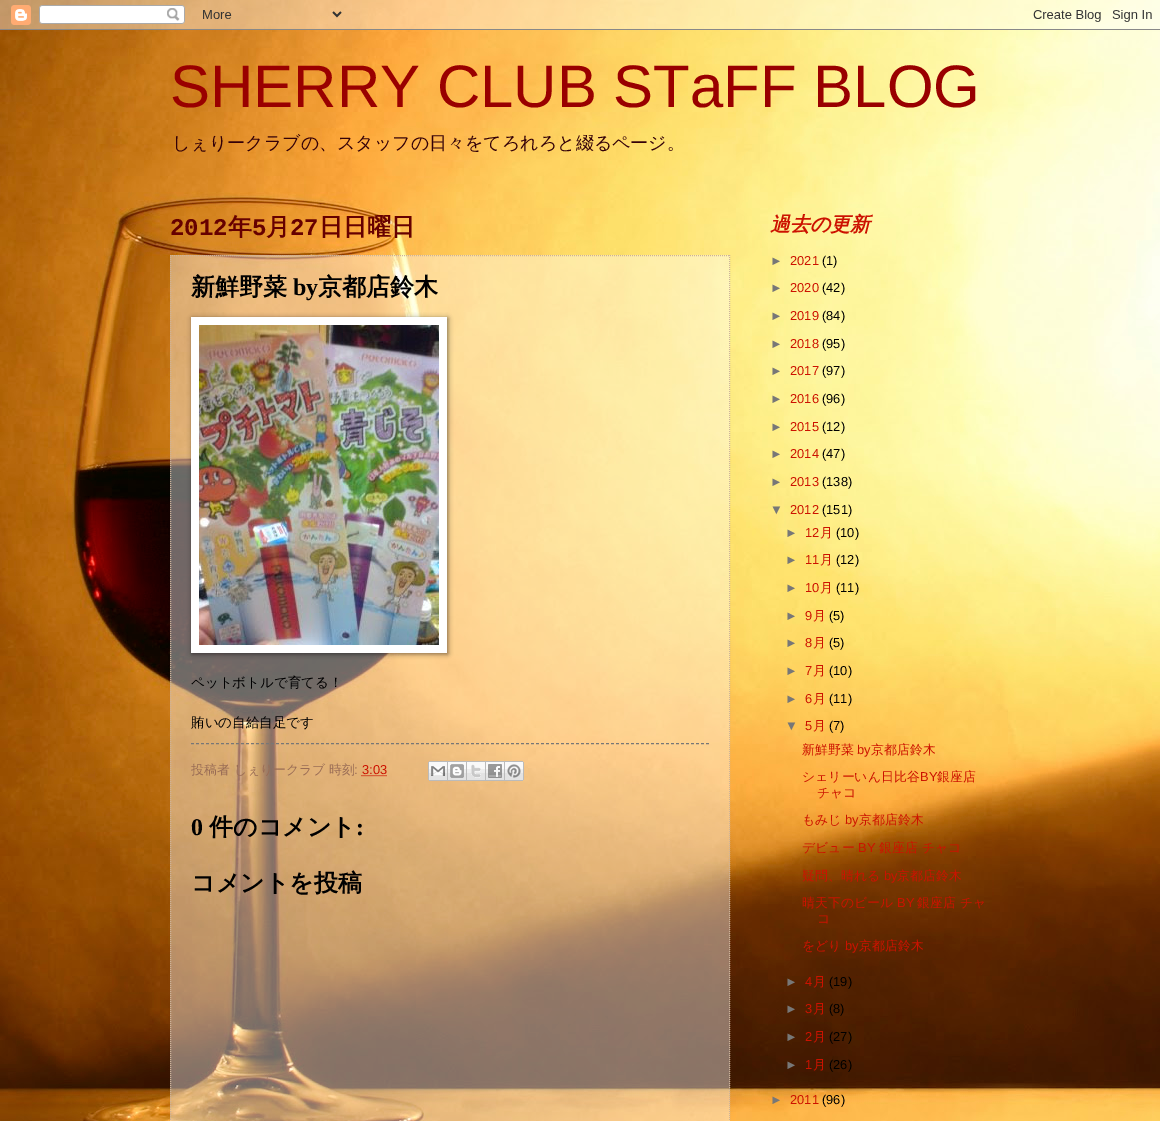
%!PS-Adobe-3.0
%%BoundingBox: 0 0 1160 1121
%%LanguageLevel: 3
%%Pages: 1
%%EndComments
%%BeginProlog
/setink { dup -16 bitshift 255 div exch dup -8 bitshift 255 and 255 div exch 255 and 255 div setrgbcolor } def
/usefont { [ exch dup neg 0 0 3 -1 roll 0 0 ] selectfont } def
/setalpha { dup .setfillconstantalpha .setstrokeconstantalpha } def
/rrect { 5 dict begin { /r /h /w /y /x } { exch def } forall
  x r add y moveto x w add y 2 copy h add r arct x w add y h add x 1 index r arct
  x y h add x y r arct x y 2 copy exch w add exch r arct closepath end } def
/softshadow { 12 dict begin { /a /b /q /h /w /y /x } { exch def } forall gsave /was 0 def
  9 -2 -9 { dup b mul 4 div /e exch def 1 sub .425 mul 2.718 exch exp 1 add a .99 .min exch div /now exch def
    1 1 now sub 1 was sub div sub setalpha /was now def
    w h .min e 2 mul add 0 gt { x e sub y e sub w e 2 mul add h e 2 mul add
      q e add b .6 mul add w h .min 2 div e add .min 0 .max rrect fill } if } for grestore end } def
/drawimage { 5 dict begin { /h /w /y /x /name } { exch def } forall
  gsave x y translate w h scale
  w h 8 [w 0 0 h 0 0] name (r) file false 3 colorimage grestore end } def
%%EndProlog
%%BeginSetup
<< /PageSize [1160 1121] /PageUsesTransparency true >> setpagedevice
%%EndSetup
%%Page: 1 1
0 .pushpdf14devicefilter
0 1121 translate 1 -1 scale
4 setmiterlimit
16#FFFFFF setink
0 0 1160 1121 rectfill
(img1.raw) 0 0 1160 1121 drawimage
(img2.raw) 0 0 1160 30 drawimage
/LiberationSans-Regular 60 usefont
16#990000 setink
170 107 moveto (SHERRY CLUB STaFF BLOG) show
/WenQuanYiZenHei-Medium 18 usefont
16#330008 setink
172 149 moveto (しぇりークラブの、スタッフの日々をてろれろと綴るページ。) show
/LiberationMono-Bold 24 usefont
16#660000 setink
170 235 moveto (2012) show
/WenQuanYiZenHei-Bold 24 usefont
228 235 moveto (年) show
/LiberationMono-Bold 24 usefont
252 235 moveto (5) show
/WenQuanYiZenHei-Bold 24 usefont
266 235 moveto (月) show
/LiberationMono-Bold 24 usefont
290 235 moveto (27) show
/WenQuanYiZenHei-Bold 24 usefont
319 235 moveto (日日曜日) show
0.4 setalpha
16#FFFFFF setink
170 255 560 866 rectfill
1 setalpha
16#CCB299 setink
[1 1] 0 setdash
170 255.5 moveto 730 255.5 lineto stroke
729.5 255 moveto 729.5 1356 lineto stroke
170.5 255 moveto 170.5 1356 lineto stroke
16#000000 setink
191 295 moveto (新鮮野菜) show
/LiberationSerif-Bold 24 usefont
293 295 moveto (by) show
/WenQuanYiZenHei-Bold 24 usefont
318 295 moveto (京都店鈴木) show
192 318 256 336 0 2.5 0.5 softshadow
16#FFFFFF setink
191 317 256 336 rectfill
(img3.raw) 199 325 240 320 drawimage
/WenQuanYiZenHei-Medium 13.5 usefont
16#000000 setink
191 687 moveto (ペットボトルで育てる！) show
191 727 moveto (賄いの自給自足です) show
16#777777 setink
[3 2] 0 setdash
191 743.5 moveto 709 743.5 lineto stroke
/WenQuanYiZenHei-Medium 12.9 usefont
16#996C55 setink
191 774 moveto (投稿者 しぇりークラブ) show
329 774 moveto (時刻) show
/LiberationSans-Regular 12.9 usefont
354 774 moveto (:) show
16#CC1200 setink
362 774 moveto (3:03) show
[1 1] 0 setdash
361.5 775.5 moveto 386.5 775.5 lineto stroke
(img4.raw) 428 761 20 20 drawimage
(img5.raw) 448 761 19 20 drawimage
(img6.raw) 467 761 19 20 drawimage
(img7.raw) 486 761 19 20 drawimage
(img8.raw) 505 761 19 20 drawimage
/LiberationSerif-Bold 24 usefont
16#000000 setink
191 835 moveto (0) show
/WenQuanYiZenHei-Bold 24 usefont
209 835 moveto (件のコメント) show
/LiberationSerif-Bold 24 usefont
356 835 moveto (:) show
/WenQuanYiZenHei-Bold 24 usefont
191 891 moveto (コメントを投稿) show
/WenQuanYiZenHei-BoldItalic 20 usefont
16#CC1200 setink
770 231 moveto (過去の更新) show
/LiberationSans-Regular 12.9 usefont
16#777777 setink
770 265 moveto (►) show
16#CC1200 setink
790 265 moveto (2021) show
16#000000 setink
822 265 moveto (\(1\)) show
16#777777 setink
770 292 moveto (►) show
16#CC1200 setink
790 292 moveto (2020) show
16#000000 setink
822 292 moveto (\(42\)) show
16#777777 setink
770 320 moveto (►) show
16#CC1200 setink
790 320 moveto (2019) show
16#000000 setink
822 320 moveto (\(84\)) show
16#777777 setink
770 348 moveto (►) show
16#CC1200 setink
790 348 moveto (2018) show
16#000000 setink
822 348 moveto (\(95\)) show
16#777777 setink
770 375 moveto (►) show
16#CC1200 setink
790 375 moveto (2017) show
16#000000 setink
822 375 moveto (\(97\)) show
16#777777 setink
770 403 moveto (►) show
16#CC1200 setink
790 403 moveto (2016) show
16#000000 setink
822 403 moveto (\(96\)) show
16#777777 setink
770 431 moveto (►) show
16#CC1200 setink
790 431 moveto (2015) show
16#000000 setink
822 431 moveto (\(12\)) show
16#777777 setink
770 458 moveto (►) show
16#CC1200 setink
790 458 moveto (2014) show
16#000000 setink
822 458 moveto (\(47\)) show
16#777777 setink
770 486 moveto (►) show
16#CC1200 setink
790 486 moveto (2013) show
16#000000 setink
822 486 moveto (\(138\)) show
16#777777 setink
770 514 moveto (▼) show
16#CC1200 setink
790 514 moveto (2012) show
16#000000 setink
822 514 moveto (\(151\)) show
16#777777 setink
785 537 moveto (►) show
16#CC1200 setink
805 537 moveto (12) show
/WenQuanYiZenHei-Medium 12.9 usefont
820 537 moveto (月) show
/LiberationSans-Regular 12.9 usefont
16#000000 setink
836 537 moveto (\(10\)) show
16#777777 setink
785 564 moveto (►) show
16#CC1200 setink
805 564 moveto (11) show
/WenQuanYiZenHei-Medium 12.9 usefont
820 564 moveto (月) show
/LiberationSans-Regular 12.9 usefont
16#000000 setink
836 564 moveto (\(12\)) show
16#777777 setink
785 592 moveto (►) show
16#CC1200 setink
805 592 moveto (10) show
/WenQuanYiZenHei-Medium 12.9 usefont
820 592 moveto (月) show
/LiberationSans-Regular 12.9 usefont
16#000000 setink
836 592 moveto (\(11\)) show
16#777777 setink
785 620 moveto (►) show
16#CC1200 setink
805 620 moveto (9) show
/WenQuanYiZenHei-Medium 12.9 usefont
813 620 moveto (月) show
/LiberationSans-Regular 12.9 usefont
16#000000 setink
829 620 moveto (\(5\)) show
16#777777 setink
785 647 moveto (►) show
16#CC1200 setink
805 647 moveto (8) show
/WenQuanYiZenHei-Medium 12.9 usefont
813 647 moveto (月) show
/LiberationSans-Regular 12.9 usefont
16#000000 setink
829 647 moveto (\(5\)) show
16#777777 setink
785 675 moveto (►) show
16#CC1200 setink
805 675 moveto (7) show
/WenQuanYiZenHei-Medium 12.9 usefont
813 675 moveto (月) show
/LiberationSans-Regular 12.9 usefont
16#000000 setink
829 675 moveto (\(10\)) show
16#777777 setink
785 703 moveto (►) show
16#CC1200 setink
805 703 moveto (6) show
/WenQuanYiZenHei-Medium 12.9 usefont
813 703 moveto (月) show
/LiberationSans-Regular 12.9 usefont
16#000000 setink
829 703 moveto (\(11\)) show
16#777777 setink
785 730 moveto (▼) show
16#CC1200 setink
805 730 moveto (5) show
/WenQuanYiZenHei-Medium 12.9 usefont
813 730 moveto (月) show
/LiberationSans-Regular 12.9 usefont
16#000000 setink
829 730 moveto (\(7\)) show
/WenQuanYiZenHei-Medium 12.9 usefont
16#CC1200 setink
802 754 moveto (新鮮野菜) show
/LiberationSans-Regular 12.9 usefont
857 754 moveto (by) show
/WenQuanYiZenHei-Medium 12.9 usefont
871 754 moveto (京都店鈴木) show
802 781 moveto (シェリーいん日比谷) show
/LiberationSans-Regular 12.9 usefont
920 781 moveto (BY) show
/WenQuanYiZenHei-Medium 12.9 usefont
[
    [(銀座店) 937 781]
    [(チャコ) 817 797]
    [(もみじ) 802 824]
] { aload pop moveto show } forall
/LiberationSans-Regular 12.9 usefont
845 824 moveto (by) show
/WenQuanYiZenHei-Medium 12.9 usefont
859 824 moveto (京都店鈴木) show
802 852 moveto (デビュー) show
/LiberationSans-Regular 12.9 usefont
858 852 moveto (BY) show
/WenQuanYiZenHei-Medium 12.9 usefont
879 852 moveto (銀座店 チャコ) show
802 880 moveto (疑問、晴れる) show
/LiberationSans-Regular 12.9 usefont
884 880 moveto (by) show
/WenQuanYiZenHei-Medium 12.9 usefont
897 880 moveto (京都店鈴木) show
802 907 moveto (晴天下のビール) show
/LiberationSans-Regular 12.9 usefont
897 907 moveto (BY) show
/WenQuanYiZenHei-Medium 12.9 usefont
[
    [(銀座店 チャ) 917 907]
    [(コ) 817 923]
    [(をどり) 802 950]
] { aload pop moveto show } forall
/LiberationSans-Regular 12.9 usefont
845 950 moveto (by) show
/WenQuanYiZenHei-Medium 12.9 usefont
859 950 moveto (京都店鈴木) show
/LiberationSans-Regular 12.9 usefont
16#777777 setink
785 986 moveto (►) show
16#CC1200 setink
805 986 moveto (4) show
/WenQuanYiZenHei-Medium 12.9 usefont
813 986 moveto (月) show
/LiberationSans-Regular 12.9 usefont
16#000000 setink
829 986 moveto (\(19\)) show
16#777777 setink
785 1013 moveto (►) show
16#CC1200 setink
805 1013 moveto (3) show
/WenQuanYiZenHei-Medium 12.9 usefont
813 1013 moveto (月) show
/LiberationSans-Regular 12.9 usefont
16#000000 setink
829 1013 moveto (\(8\)) show
16#777777 setink
785 1041 moveto (►) show
16#CC1200 setink
805 1041 moveto (2) show
/WenQuanYiZenHei-Medium 12.9 usefont
813 1041 moveto (月) show
/LiberationSans-Regular 12.9 usefont
16#000000 setink
829 1041 moveto (\(27\)) show
16#777777 setink
785 1069 moveto (►) show
16#CC1200 setink
805 1069 moveto (1) show
/WenQuanYiZenHei-Medium 12.9 usefont
813 1069 moveto (月) show
/LiberationSans-Regular 12.9 usefont
16#000000 setink
829 1069 moveto (\(26\)) show
16#777777 setink
770 1104 moveto (►) show
16#CC1200 setink
790 1104 moveto (2011) show
16#000000 setink
822 1104 moveto (\(96\)) show
.poppdf14devicefilter showpage
%%EOF
